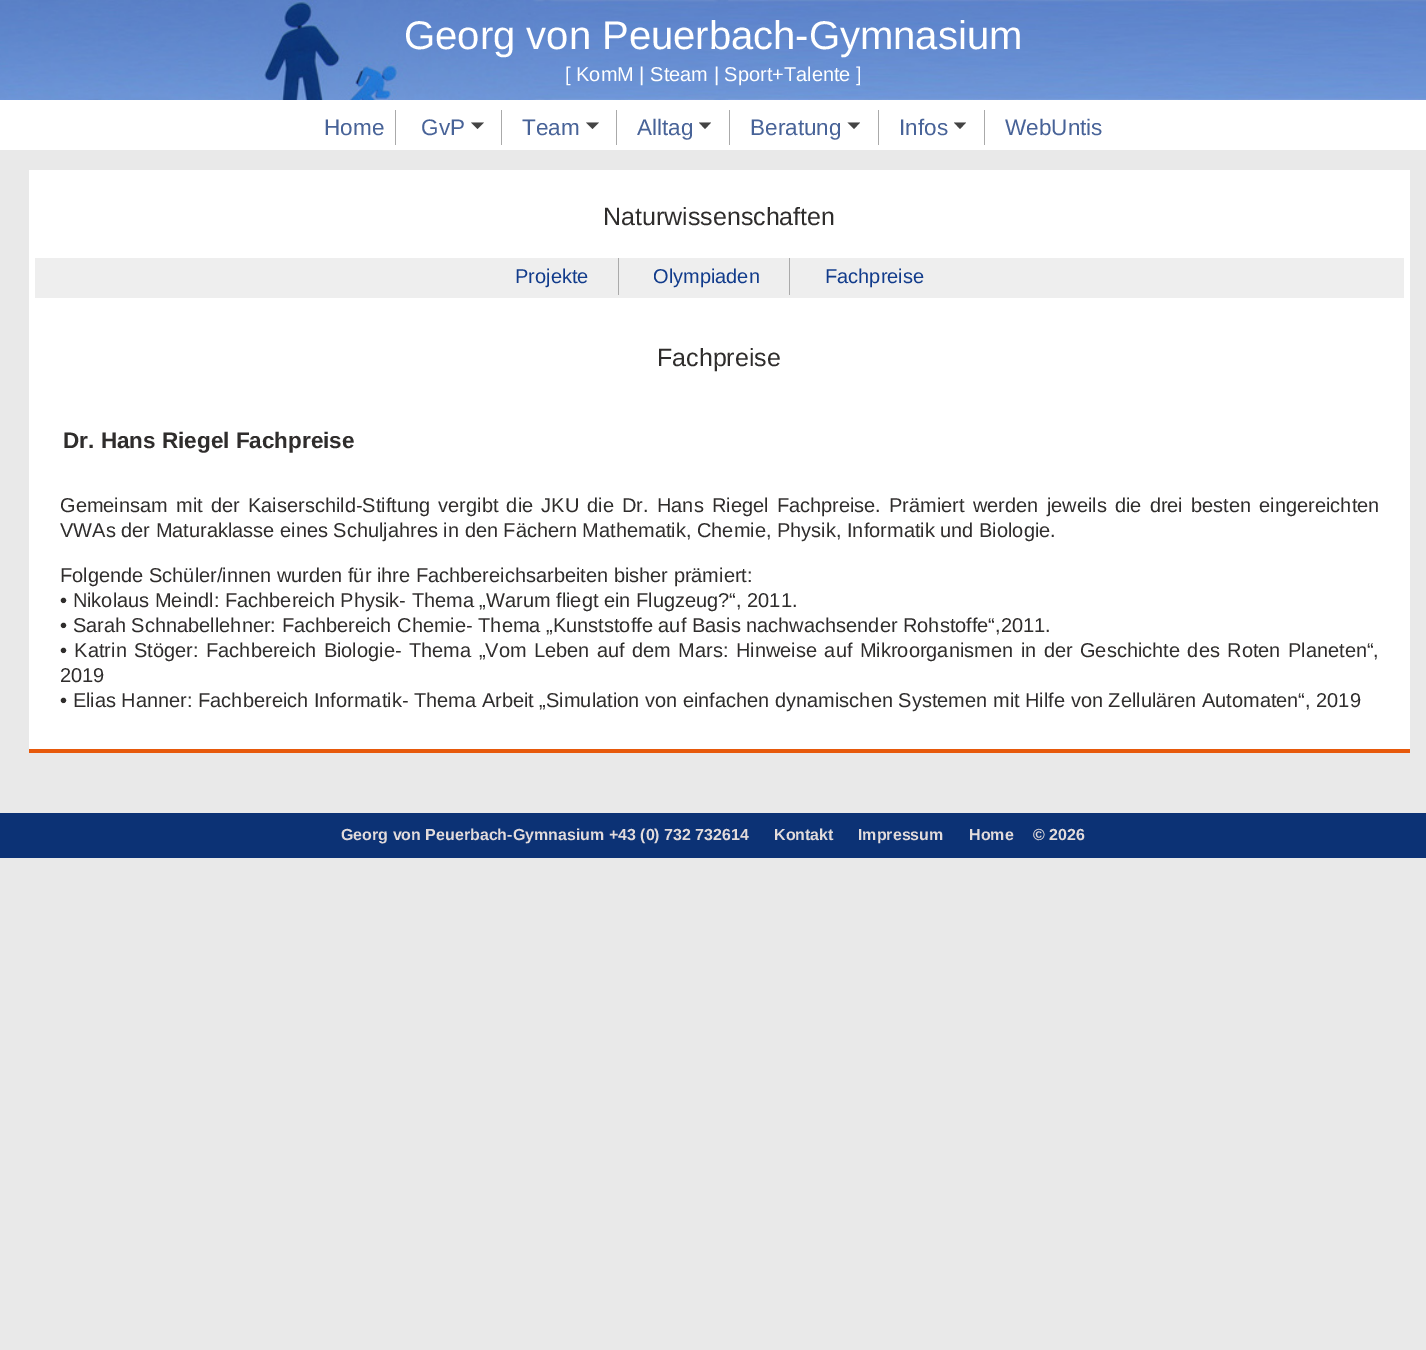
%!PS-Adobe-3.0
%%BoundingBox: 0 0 1426 1350
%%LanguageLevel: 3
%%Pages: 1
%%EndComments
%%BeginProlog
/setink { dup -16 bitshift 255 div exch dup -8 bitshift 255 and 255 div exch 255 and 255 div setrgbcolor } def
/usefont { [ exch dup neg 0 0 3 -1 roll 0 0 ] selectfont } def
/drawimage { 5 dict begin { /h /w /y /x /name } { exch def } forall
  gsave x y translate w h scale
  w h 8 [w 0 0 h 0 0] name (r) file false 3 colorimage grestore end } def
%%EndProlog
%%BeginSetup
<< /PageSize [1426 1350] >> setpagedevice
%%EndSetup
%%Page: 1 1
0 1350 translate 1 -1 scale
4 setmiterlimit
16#E9E9E9 setink
0 0 1426 1350 rectfill
(img1.raw) 0 0 1426 100 drawimage
/LiberationSans-Regular 40 usefont
16#FFFFFF setink
404 49 moveto (Georg von Peuerbach-Gymnasium) show
/LiberationSans-Regular 20 usefont
565 81 moveto ([ KomM | Steam | Sport+Talente ]) show
0 100 1426 50 rectfill
/LiberationSans-Regular 22.5 usefont
16#486398 setink
324 135 moveto (Home) show
16#AAAAAA setink
395 110 1 35 rectfill
16#486398 setink
421 135 moveto (GvP) show
16#AAAAAA setink
501 110 1 35 rectfill
16#444444 setink
471 122.5 moveto 484 122.5 lineto 477.5 129 lineto closepath fill
16#486398 setink
522 135 moveto (Team) show
16#AAAAAA setink
616 110 1 35 rectfill
16#444444 setink
586 122.5 moveto 599 122.5 lineto 592.5 129 lineto closepath fill
16#486398 setink
637 135 moveto (Alltag) show
16#AAAAAA setink
729 110 1 35 rectfill
16#444444 setink
699 122.5 moveto 711 122.5 lineto 705 129 lineto closepath fill
16#486398 setink
750 135 moveto (Beratung) show
16#AAAAAA setink
878 110 1 35 rectfill
16#444444 setink
847.5 122.5 moveto 860 122.5 lineto 854 129 lineto closepath fill
16#486398 setink
899 135 moveto (Infos) show
16#AAAAAA setink
984 110 1 35 rectfill
16#444444 setink
954 122.5 moveto 966 122.5 lineto 960 129 lineto closepath fill
16#486398 setink
1005 135 moveto (WebUntis) show
16#FFFFFF setink
29 170 1381 579 rectfill
16#E7590B setink
29 749 1381 4 rectfill
/LiberationSans-Regular 25 usefont
16#2F2D2C setink
603 225 moveto (Naturwissenschaften) show
16#EEEEEE setink
35 258 1369 40 rectfill
/LiberationSans-Regular 20 usefont
16#113B8B setink
515 283 moveto (Projekte) show
16#AAAAAA setink
618 258 1 37 rectfill
16#113B8B setink
653 283 moveto (Olympiaden) show
16#AAAAAA setink
789 258 1 37 rectfill
16#113B8B setink
825 283 moveto (Fachpreise) show
/LiberationSans-Regular 25 usefont
16#2F2D2C setink
657 366 moveto (Fachpreise) show
/LiberationSans-Bold 22.5 usefont
63 448 moveto (Dr. Hans Riegel Fachpreise) show
/LiberationSans-Regular 20 usefont
60 512 moveto 2.6 0 32 (Gemeinsam mit der Kaiserschild-Stiftung vergibt die JKU die Dr. Hans Riegel Fachpreise. Prämiert werden jeweils die drei besten eingereichten) widthshow
[
    [(VWAs der Maturaklasse eines Schuljahres in den Fächern Mathematik, Chemie, Physik, Informatik und Biologie.) 60 537]
    [(Folgende Schüler/innen wurden für ihre Fachbereichsarbeiten bisher prämiert:) 60 582]
    [(• Nikolaus Meindl: Fachbereich Physik- Thema „Warum fliegt ein Flugzeug?“, 2011.) 60 607]
    [(• Sarah Schnabellehner: Fachbereich Chemie- Thema „Kunststoffe auf Basis nachwachsender Rohstoffe“,2011.) 60 632]
] { aload pop moveto show } forall
60 657 moveto 1.9 0 32 (• Katrin Stöger: Fachbereich Biologie- Thema „Vom Leben auf dem Mars: Hinweise auf Mikroorganismen in der Geschichte des Roten Planeten“,) widthshow
60 682 moveto (2019) show
60 707 moveto (• Elias Hanner: Fachbereich Informatik- Thema Arbeit „Simulation von einfachen dynamischen Systemen mit Hilfe von Zellulären Automaten“, 2019) show
16#0C3275 setink
0 813 1426 45 rectfill
/LiberationSans-Bold 16 usefont
16#E2DBDB setink
[
    [(Georg von Peuerbach-Gymnasium +43 \(0\) 732 732614) 341 840]
    [(Kontakt) 774 840]
    [(Impressum) 858 840]
    [(Home) 969 840]
    [(© 2026) 1033 840]
] { aload pop moveto show } forall
showpage
%%EOF
